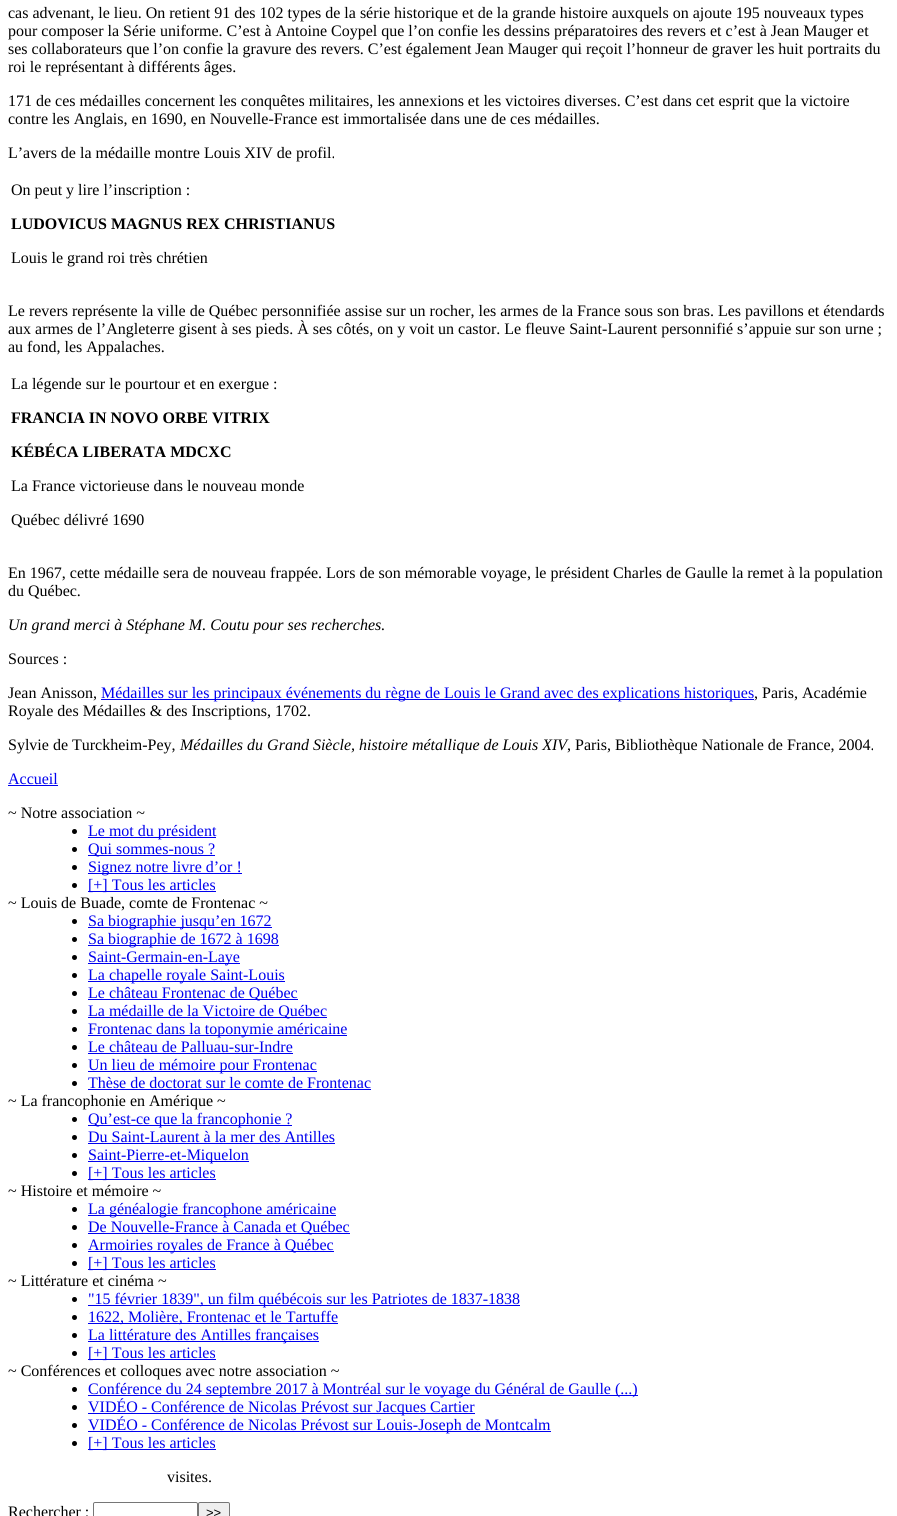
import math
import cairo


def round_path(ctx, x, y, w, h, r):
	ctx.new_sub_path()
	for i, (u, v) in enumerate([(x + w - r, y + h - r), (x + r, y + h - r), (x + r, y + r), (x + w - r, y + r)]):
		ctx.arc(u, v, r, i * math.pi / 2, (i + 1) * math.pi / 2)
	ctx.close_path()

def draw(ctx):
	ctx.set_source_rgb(1, 1, 1)
	ctx.paint()
	ctx.select_font_face('Liberation Serif')
	ctx.set_font_size(16)
	ctx.set_source_rgb(0, 0, 0)
	for x, y, s in [
		(8, 18, 'cas advenant, le lieu. On retient 91 des 102 types de la série historique et de la grande histoire auxquels on ajoute 195 nouveaux types'),
		(8, 36, 'pour composer la Série uniforme. C’est à Antoine Coypel que l’on confie les dessins préparatoires des revers et c’est à Jean Mauger et'),
		(8, 54, 'ses collaborateurs que l’on confie la gravure des revers. C’est également Jean Mauger qui reçoit l’honneur de graver les huit portraits du'),
		(8, 72, 'roi le représentant à différents âges.'),
		(8, 106, '171 de ces médailles concernent les conquêtes militaires, les annexions et les victoires diverses. C’est dans cet esprit que la victoire'),
		(8, 124, 'contre les Anglais, en 1690, en Nouvelle-France est immortalisée dans une de ces médailles.'),
		(8, 158, 'L’avers de la médaille montre Louis XIV de profil.'),
		(11, 195, 'On peut y lire l’inscription :'),
	]:
		ctx.move_to(x, y)
		ctx.show_text(s)
	ctx.select_font_face('Liberation Serif', cairo.FONT_SLANT_NORMAL, cairo.FONT_WEIGHT_BOLD)
	ctx.move_to(11, 229)
	ctx.show_text('LUDOVICUS MAGNUS REX CHRISTIANUS')
	ctx.select_font_face('Liberation Serif')
	for x, y, s in [
		(11, 263, 'Louis le grand roi très chrétien'),
		(8, 316, 'Le revers représente la ville de Québec personnifiée assise sur un rocher, les armes de la France sous son bras. Les pavillons et étendards'),
		(8, 334, 'aux armes de l’Angleterre gisent à ses pieds. À ses côtés, on y voit un castor. Le fleuve Saint-Laurent personnifié s’appuie sur son urne ;'),
		(8, 352, 'au fond, les Appalaches.'),
		(11, 389, 'La légende sur le pourtour et en exergue :'),
	]:
		ctx.move_to(x, y)
		ctx.show_text(s)
	ctx.select_font_face('Liberation Serif', cairo.FONT_SLANT_NORMAL, cairo.FONT_WEIGHT_BOLD)
	ctx.move_to(11, 423)
	ctx.show_text('FRANCIA IN NOVO ORBE VITRIX')
	ctx.move_to(11, 457)
	ctx.show_text('KÉBÉCA LIBERATA MDCXC')
	ctx.select_font_face('Liberation Serif')
	for x, y, s in [
		(11, 491, 'La France victorieuse dans le nouveau monde'),
		(11, 525, 'Québec délivré 1690'),
		(8, 578, 'En 1967, cette médaille sera de nouveau frappée. Lors de son mémorable voyage, le président Charles de Gaulle la remet à la population'),
		(8, 596, 'du Québec.'),
	]:
		ctx.move_to(x, y)
		ctx.show_text(s)
	ctx.select_font_face('Liberation Serif', cairo.FONT_SLANT_ITALIC)
	ctx.move_to(8, 630)
	ctx.show_text('Un grand merci à Stéphane M. Coutu pour ses recherches.')
	ctx.select_font_face('Liberation Serif')
	ctx.move_to(8, 664)
	ctx.show_text('Sources :')
	ctx.move_to(8, 698)
	ctx.show_text('Jean Anisson,')
	ctx.set_source_rgb(0, 0, 0.933)
	ctx.rectangle(101, 699, 653, 1)
	ctx.fill()
	ctx.move_to(101, 698)
	ctx.show_text('Médailles sur les principaux événements du règne de Louis le Grand avec des explications historiques')
	ctx.set_source_rgb(0, 0, 0)
	for x, y, s in [
		(754, 698, ', Paris, Académie'),
		(8, 716, 'Royale des Médailles & des Inscriptions, 1702.'),
		(8, 750, 'Sylvie de Turckheim-Pey,'),
	]:
		ctx.move_to(x, y)
		ctx.show_text(s)
	ctx.select_font_face('Liberation Serif', cairo.FONT_SLANT_ITALIC)
	ctx.move_to(180, 750)
	ctx.show_text('Médailles du Grand Siècle, histoire métallique de Louis XIV')
	ctx.select_font_face('Liberation Serif')
	ctx.move_to(567, 750)
	ctx.show_text(', Paris, Bibliothèque Nationale de France, 2004.')
	ctx.set_source_rgb(0, 0, 0.933)
	ctx.move_to(8, 784)
	ctx.show_text('Accueil')
	ctx.rectangle(8, 785, 50, 1)
	ctx.fill()
	ctx.set_source_rgb(0, 0, 0)
	ctx.move_to(8, 818)
	ctx.show_text('~ Notre association ~')
	ctx.new_path()
	ctx.arc(74.5, 831.5, 2.5, 0, 2 * math.pi)
	ctx.fill()
	ctx.set_source_rgb(0, 0, 0.933)
	ctx.rectangle(88, 837, 128, 1)
	ctx.fill()
	ctx.move_to(88, 836)
	ctx.show_text('Le mot du président')
	ctx.set_source_rgb(0, 0, 0)
	ctx.new_path()
	ctx.arc(74.5, 849.5, 2.5, 0, 2 * math.pi)
	ctx.fill()
	ctx.set_source_rgb(0, 0, 0.933)
	ctx.rectangle(88, 855, 127, 1)
	ctx.fill()
	ctx.move_to(88, 854)
	ctx.show_text('Qui sommes-nous ?')
	ctx.set_source_rgb(0, 0, 0)
	ctx.new_path()
	ctx.arc(74.5, 867.5, 2.5, 0, 2 * math.pi)
	ctx.fill()
	ctx.set_source_rgb(0, 0, 0.933)
	ctx.rectangle(88, 873, 154, 1)
	ctx.fill()
	ctx.move_to(88, 872)
	ctx.show_text('Signez notre livre d’or !')
	ctx.set_source_rgb(0, 0, 0)
	ctx.new_path()
	ctx.arc(74.5, 885.5, 2.5, 0, 2 * math.pi)
	ctx.fill()
	ctx.set_source_rgb(0, 0, 0.933)
	ctx.rectangle(88, 891, 128, 1)
	ctx.fill()
	ctx.move_to(88, 890)
	ctx.show_text('[+] Tous les articles')
	ctx.set_source_rgb(0, 0, 0)
	ctx.move_to(8, 908)
	ctx.show_text('~ Louis de Buade, comte de Frontenac ~')
	ctx.new_path()
	ctx.arc(74.5, 921.5, 2.5, 0, 2 * math.pi)
	ctx.fill()
	ctx.set_source_rgb(0, 0, 0.933)
	ctx.rectangle(88, 927, 184, 1)
	ctx.fill()
	ctx.move_to(88, 926)
	ctx.show_text('Sa biographie jusqu’en 1672')
	ctx.set_source_rgb(0, 0, 0)
	ctx.new_path()
	ctx.arc(74.5, 939.5, 2.5, 0, 2 * math.pi)
	ctx.fill()
	ctx.set_source_rgb(0, 0, 0.933)
	ctx.rectangle(88, 945, 191, 1)
	ctx.fill()
	ctx.move_to(88, 944)
	ctx.show_text('Sa biographie de 1672 à 1698')
	ctx.set_source_rgb(0, 0, 0)
	ctx.new_path()
	ctx.arc(74.5, 957.5, 2.5, 0, 2 * math.pi)
	ctx.fill()
	ctx.set_source_rgb(0, 0, 0.933)
	ctx.rectangle(88, 963, 152, 1)
	ctx.fill()
	ctx.move_to(88, 962)
	ctx.show_text('Saint-Germain-en-Laye')
	ctx.set_source_rgb(0, 0, 0)
	ctx.new_path()
	ctx.arc(74.5, 975.5, 2.5, 0, 2 * math.pi)
	ctx.fill()
	ctx.set_source_rgb(0, 0, 0.933)
	ctx.rectangle(88, 981, 197, 1)
	ctx.fill()
	ctx.move_to(88, 980)
	ctx.show_text('La chapelle royale Saint-Louis')
	ctx.set_source_rgb(0, 0, 0)
	ctx.new_path()
	ctx.arc(74.5, 993.5, 2.5, 0, 2 * math.pi)
	ctx.fill()
	ctx.set_source_rgb(0, 0, 0.933)
	ctx.rectangle(88, 999, 210, 1)
	ctx.fill()
	ctx.move_to(88, 998)
	ctx.show_text('Le château Frontenac de Québec')
	ctx.set_source_rgb(0, 0, 0)
	ctx.new_path()
	ctx.arc(74.5, 1011.5, 2.5, 0, 2 * math.pi)
	ctx.fill()
	ctx.set_source_rgb(0, 0, 0.933)
	ctx.rectangle(88, 1017, 239, 1)
	ctx.fill()
	ctx.move_to(88, 1016)
	ctx.show_text('La médaille de la Victoire de Québec')
	ctx.set_source_rgb(0, 0, 0)
	ctx.new_path()
	ctx.arc(74.5, 1029.5, 2.5, 0, 2 * math.pi)
	ctx.fill()
	ctx.set_source_rgb(0, 0, 0.933)
	ctx.rectangle(88, 1035, 259, 1)
	ctx.fill()
	ctx.move_to(88, 1034)
	ctx.show_text('Frontenac dans la toponymie américaine')
	ctx.set_source_rgb(0, 0, 0)
	ctx.new_path()
	ctx.arc(74.5, 1047.5, 2.5, 0, 2 * math.pi)
	ctx.fill()
	ctx.set_source_rgb(0, 0, 0.933)
	ctx.move_to(88, 1052)
	ctx.show_text('Le château de Palluau-sur-Indre')
	ctx.rectangle(88, 1053, 205, 1)
	ctx.fill()
	ctx.set_source_rgb(0, 0, 0)
	ctx.arc(74.5, 1065.5, 2.5, 0, 2 * math.pi)
	ctx.fill()
	ctx.set_source_rgb(0, 0, 0.933)
	ctx.rectangle(88, 1071, 229, 1)
	ctx.fill()
	ctx.move_to(88, 1070)
	ctx.show_text('Un lieu de mémoire pour Frontenac')
	ctx.set_source_rgb(0, 0, 0)
	ctx.new_path()
	ctx.arc(74.5, 1083.5, 2.5, 0, 2 * math.pi)
	ctx.fill()
	ctx.set_source_rgb(0, 0, 0.933)
	ctx.move_to(88, 1088)
	ctx.show_text('Thèse de doctorat sur le comte de Frontenac')
	ctx.rectangle(88, 1089, 283, 1)
	ctx.fill()
	ctx.set_source_rgb(0, 0, 0)
	ctx.move_to(8, 1106)
	ctx.show_text('~ La francophonie en Amérique ~')
	ctx.new_path()
	ctx.arc(74.5, 1119.5, 2.5, 0, 2 * math.pi)
	ctx.fill()
	ctx.set_source_rgb(0, 0, 0.933)
	ctx.rectangle(88, 1125, 204, 1)
	ctx.fill()
	ctx.move_to(88, 1124)
	ctx.show_text('Qu’est-ce que la francophonie ?')
	ctx.set_source_rgb(0, 0, 0)
	ctx.new_path()
	ctx.arc(74.5, 1137.5, 2.5, 0, 2 * math.pi)
	ctx.fill()
	ctx.set_source_rgb(0, 0, 0.933)
	ctx.move_to(88, 1142)
	ctx.show_text('Du Saint-Laurent à la mer des Antilles')
	ctx.rectangle(88, 1143, 247, 1)
	ctx.fill()
	ctx.set_source_rgb(0, 0, 0)
	ctx.arc(74.5, 1155.5, 2.5, 0, 2 * math.pi)
	ctx.fill()
	ctx.set_source_rgb(0, 0, 0.933)
	ctx.rectangle(88, 1161, 161, 1)
	ctx.fill()
	ctx.move_to(88, 1160)
	ctx.show_text('Saint-Pierre-et-Miquelon')
	ctx.set_source_rgb(0, 0, 0)
	ctx.new_path()
	ctx.arc(74.5, 1173.5, 2.5, 0, 2 * math.pi)
	ctx.fill()
	ctx.set_source_rgb(0, 0, 0.933)
	ctx.rectangle(88, 1179, 128, 1)
	ctx.fill()
	ctx.move_to(88, 1178)
	ctx.show_text('[+] Tous les articles')
	ctx.set_source_rgb(0, 0, 0)
	ctx.move_to(8, 1196)
	ctx.show_text('~ Histoire et mémoire ~')
	ctx.new_path()
	ctx.arc(74.5, 1209.5, 2.5, 0, 2 * math.pi)
	ctx.fill()
	ctx.set_source_rgb(0, 0, 0.933)
	ctx.rectangle(88, 1215, 248, 1)
	ctx.fill()
	ctx.move_to(88, 1214)
	ctx.show_text('La généalogie francophone américaine')
	ctx.set_source_rgb(0, 0, 0)
	ctx.new_path()
	ctx.arc(74.5, 1227.5, 2.5, 0, 2 * math.pi)
	ctx.fill()
	ctx.set_source_rgb(0, 0, 0.933)
	ctx.rectangle(88, 1233, 262, 1)
	ctx.fill()
	ctx.move_to(88, 1232)
	ctx.show_text('De Nouvelle-France à Canada et Québec')
	ctx.set_source_rgb(0, 0, 0)
	ctx.new_path()
	ctx.arc(74.5, 1245.5, 2.5, 0, 2 * math.pi)
	ctx.fill()
	ctx.set_source_rgb(0, 0, 0.933)
	ctx.rectangle(88, 1251, 246, 1)
	ctx.fill()
	ctx.move_to(88, 1250)
	ctx.show_text('Armoiries royales de France à Québec')
	ctx.set_source_rgb(0, 0, 0)
	ctx.new_path()
	ctx.arc(74.5, 1263.5, 2.5, 0, 2 * math.pi)
	ctx.fill()
	ctx.set_source_rgb(0, 0, 0.933)
	ctx.rectangle(88, 1269, 128, 1)
	ctx.fill()
	ctx.move_to(88, 1268)
	ctx.show_text('[+] Tous les articles')
	ctx.set_source_rgb(0, 0, 0)
	ctx.move_to(8, 1286)
	ctx.show_text('~ Littérature et cinéma ~')
	ctx.new_path()
	ctx.arc(74.5, 1299.5, 2.5, 0, 2 * math.pi)
	ctx.fill()
	ctx.set_source_rgb(0, 0, 0.933)
	ctx.rectangle(88, 1305, 432, 1)
	ctx.fill()
	ctx.move_to(88, 1304)
	ctx.show_text('"15 février 1839", un film québécois sur les Patriotes de 1837-1838')
	ctx.set_source_rgb(0, 0, 0)
	ctx.new_path()
	ctx.arc(74.5, 1317.5, 2.5, 0, 2 * math.pi)
	ctx.fill()
	ctx.set_source_rgb(0, 0, 0.933)
	ctx.rectangle(88, 1323, 250, 1)
	ctx.fill()
	ctx.move_to(88, 1322)
	ctx.show_text('1622, Molière, Frontenac et le Tartuffe')
	ctx.set_source_rgb(0, 0, 0)
	ctx.new_path()
	ctx.arc(74.5, 1335.5, 2.5, 0, 2 * math.pi)
	ctx.fill()
	ctx.set_source_rgb(0, 0, 0.933)
	ctx.rectangle(88, 1341, 231, 1)
	ctx.fill()
	ctx.move_to(88, 1340)
	ctx.show_text('La littérature des Antilles françaises')
	ctx.set_source_rgb(0, 0, 0)
	ctx.new_path()
	ctx.arc(74.5, 1353.5, 2.5, 0, 2 * math.pi)
	ctx.fill()
	ctx.set_source_rgb(0, 0, 0.933)
	ctx.rectangle(88, 1359, 128, 1)
	ctx.fill()
	ctx.move_to(88, 1358)
	ctx.show_text('[+] Tous les articles')
	ctx.set_source_rgb(0, 0, 0)
	ctx.move_to(8, 1376)
	ctx.show_text('~ Conférences et colloques avec notre association ~')
	ctx.new_path()
	ctx.arc(74.5, 1389.5, 2.5, 0, 2 * math.pi)
	ctx.fill()
	ctx.set_source_rgb(0, 0, 0.933)
	ctx.rectangle(88, 1395, 550, 1)
	ctx.fill()
	ctx.move_to(88, 1394)
	ctx.show_text('Conférence du 24 septembre 2017 à Montréal sur le voyage du Général de Gaulle (...)')
	ctx.set_source_rgb(0, 0, 0)
	ctx.new_path()
	ctx.arc(74.5, 1407.5, 2.5, 0, 2 * math.pi)
	ctx.fill()
	ctx.set_source_rgb(0, 0, 0.933)
	ctx.rectangle(88, 1413, 387, 1)
	ctx.fill()
	ctx.move_to(88, 1412)
	ctx.show_text('VIDÉO - Conférence de Nicolas Prévost sur Jacques Cartier')
	ctx.set_source_rgb(0, 0, 0)
	ctx.new_path()
	ctx.arc(74.5, 1425.5, 2.5, 0, 2 * math.pi)
	ctx.fill()
	ctx.set_source_rgb(0, 0, 0.933)
	ctx.rectangle(88, 1431, 463, 1)
	ctx.fill()
	ctx.move_to(88, 1430)
	ctx.show_text('VIDÉO - Conférence de Nicolas Prévost sur Louis-Joseph de Montcalm')
	ctx.set_source_rgb(0, 0, 0)
	ctx.new_path()
	ctx.arc(74.5, 1443.5, 2.5, 0, 2 * math.pi)
	ctx.fill()
	ctx.set_source_rgb(0, 0, 0.933)
	ctx.rectangle(88, 1449, 128, 1)
	ctx.fill()
	ctx.move_to(88, 1448)
	ctx.show_text('[+] Tous les articles')
	ctx.set_source_rgb(0, 0, 0)
	ctx.move_to(167, 1482)
	ctx.show_text('visites.')
	ctx.move_to(8, 1517)
	ctx.show_text('Rechercher :')
	round_path(ctx, 93.5, 1502.5, 104, 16, 1.5)
	ctx.set_source_rgb(0.463, 0.463, 0.463)
	ctx.set_line_width(1)
	ctx.stroke()
	ctx.set_source_rgb(0.937, 0.937, 0.937)
	round_path(ctx, 198.5, 1502.5, 31, 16, 1.5)
	ctx.fill_preserve()
	ctx.set_source_rgb(0.463, 0.463, 0.463)
	ctx.stroke()
	ctx.select_font_face('Liberation Sans')
	ctx.set_font_size(13)
	ctx.set_source_rgb(0, 0, 0)
	ctx.move_to(206, 1517)
	ctx.show_text('>>')


surface = cairo.ImageSurface(cairo.FORMAT_RGB24, 897, 1516)
ctx = cairo.Context(surface)
options = cairo.FontOptions()
options.set_hint_metrics(cairo.HINT_METRICS_OFF)
options.set_hint_style(cairo.HINT_STYLE_NONE)
ctx.set_font_options(options)
ctx.set_miter_limit(4)
draw(ctx)
surface.write_to_png('image.png')
